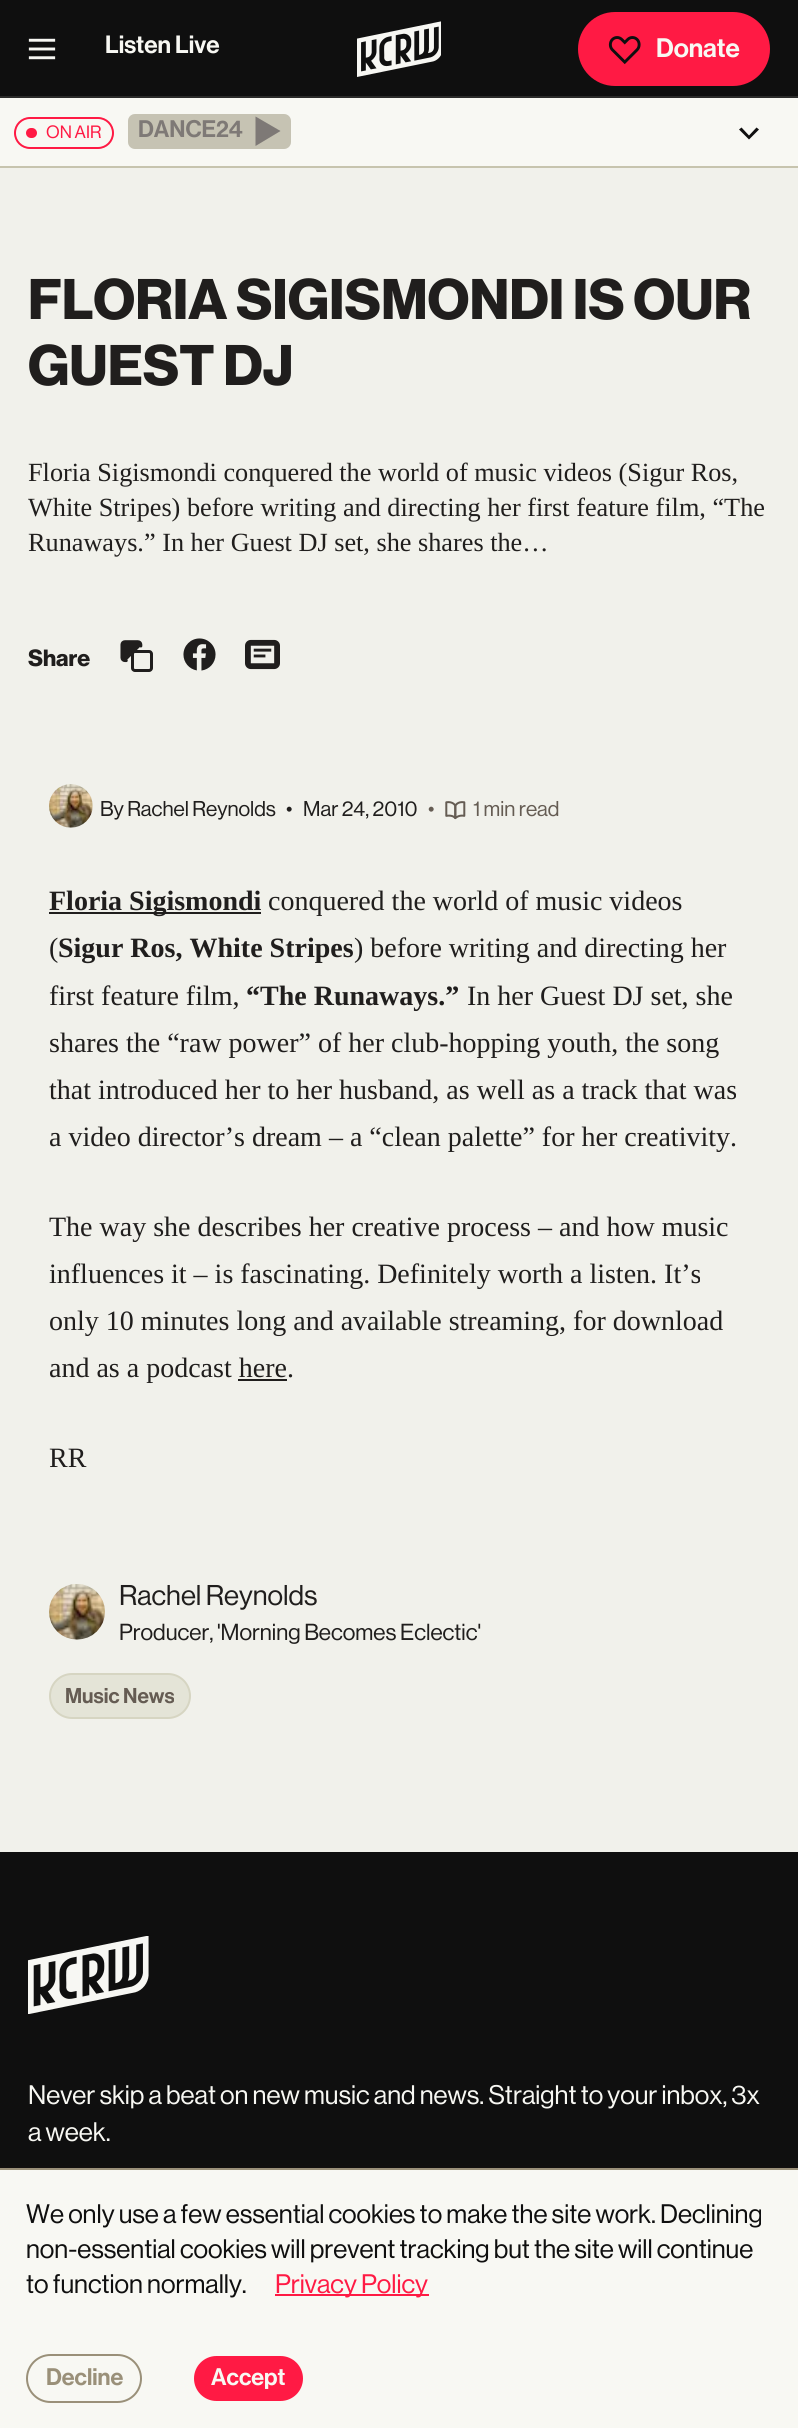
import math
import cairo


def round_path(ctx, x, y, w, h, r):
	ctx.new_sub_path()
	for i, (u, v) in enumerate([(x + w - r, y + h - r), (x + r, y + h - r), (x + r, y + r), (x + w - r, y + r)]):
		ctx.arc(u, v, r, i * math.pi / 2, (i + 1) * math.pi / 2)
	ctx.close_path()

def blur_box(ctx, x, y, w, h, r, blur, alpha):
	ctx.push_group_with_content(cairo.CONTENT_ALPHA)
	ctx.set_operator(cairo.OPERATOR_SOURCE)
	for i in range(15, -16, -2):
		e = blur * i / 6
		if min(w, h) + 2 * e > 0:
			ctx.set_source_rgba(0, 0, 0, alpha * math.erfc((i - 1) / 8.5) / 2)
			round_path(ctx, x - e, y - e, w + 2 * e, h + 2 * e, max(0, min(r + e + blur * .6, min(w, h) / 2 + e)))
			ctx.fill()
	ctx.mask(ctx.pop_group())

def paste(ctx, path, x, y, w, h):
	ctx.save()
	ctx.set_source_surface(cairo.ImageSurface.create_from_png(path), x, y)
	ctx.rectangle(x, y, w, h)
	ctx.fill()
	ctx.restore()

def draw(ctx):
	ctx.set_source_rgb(0.945, 0.945, 0.918)
	ctx.paint()
	ctx.set_source_rgb(0.059, 0.059, 0.059)
	ctx.rectangle(0, 0, 798, 96)
	ctx.fill()
	ctx.set_source_rgb(0.169, 0.169, 0.165)
	ctx.rectangle(0, 96, 798, 2)
	ctx.fill()
	paste(ctx, 'media/1.png', 28, 38, 28, 22)
	ctx.select_font_face('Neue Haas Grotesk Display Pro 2 Medium')
	ctx.set_font_size(24.5)
	ctx.set_source_rgb(0.969, 0.969, 0.953)
	ctx.move_to(105, 53)
	ctx.show_text('Listen Live')
	paste(ctx, 'media/2.png', 357, 21, 84, 56)
	ctx.set_source_rgb(1, 0.102, 0.267)
	round_path(ctx, 579, 13, 190, 72, 36)
	ctx.fill_preserve()
	ctx.stroke()
	paste(ctx, 'media/3.png', 608, 36, 33, 29)
	ctx.set_font_size(26.25)
	ctx.set_source_rgb(0.969, 0.969, 0.953)
	ctx.move_to(656, 57)
	ctx.show_text('Donate')
	ctx.rectangle(0, 98, 798, 68)
	ctx.fill()
	ctx.set_source_rgb(0.78, 0.769, 0.682)
	ctx.rectangle(0, 166, 798, 2)
	ctx.fill()
	round_path(ctx, 15, 118, 98, 30, 15)
	ctx.set_source_rgb(1, 0.102, 0.267)
	ctx.stroke()
	round_path(ctx, 26, 128, 11, 10, 5)
	ctx.fill()
	ctx.select_font_face('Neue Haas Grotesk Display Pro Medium')
	ctx.set_font_size(17.5)
	ctx.move_to(46, 138)
	ctx.show_text('ON AIR')
	ctx.set_source_rgb(0.937, 0.937, 0.937)
	round_path(ctx, 128, 114, 163, 35, 7)
	ctx.fill()
	ctx.set_source_rgba(0.714, 0.694, 0.604, 0.7)
	round_path(ctx, 128, 114, 163, 35, 7)
	ctx.fill()
	ctx.select_font_face('Neue Haas Grotesk Display Pro 2 Medium')
	ctx.set_font_size(23.5)
	ctx.set_source_rgb(0.494, 0.475, 0.463)
	ctx.move_to(138, 137)
	ctx.show_text('DANCE24')
	ctx.new_path()
	ctx.move_to(255.5, 116.5)
	ctx.line_to(255.5, 146)
	ctx.line_to(280.5, 131)
	ctx.close_path()
	ctx.fill()
	ctx.set_source_rgb(0.063, 0.059, 0.059)
	ctx.set_fill_rule(cairo.FILL_RULE_EVEN_ODD)
	ctx.new_path()
	ctx.move_to(739, 129.5)
	ctx.line_to(741.5, 127.5)
	ctx.line_to(749, 135.5)
	ctx.line_to(756.5, 127.5)
	ctx.line_to(759, 129.5)
	ctx.line_to(749, 139.5)
	ctx.close_path()
	ctx.fill()
	ctx.select_font_face('Neue Haas Grotesk Display Pro', cairo.FONT_SLANT_NORMAL, cairo.FONT_WEIGHT_BOLD)
	ctx.set_font_size(56)
	ctx.set_source_rgb(0.125, 0.118, 0.114)
	ctx.move_to(28, 319)
	ctx.show_text('FLORIA SIGISMONDI IS OUR')
	ctx.move_to(28, 385)
	ctx.show_text('GUEST DJ')
	ctx.select_font_face('Liberation Serif')
	ctx.set_font_size(26.25)
	for x, y, s in [
		(28, 481, 'Floria Sigismondi conquered the world of music videos (Sigur Ros,'),
		(28, 516, 'White Stripes) before writing and directing her first feature film, “The'),
		(28, 551, 'Runaways.” In her Guest DJ set, she shares the…'),
	]:
		ctx.move_to(x, y)
		ctx.show_text(s)
	ctx.select_font_face('Neue Haas Grotesk Display Pro', cairo.FONT_SLANT_NORMAL, cairo.FONT_WEIGHT_BOLD)
	ctx.set_font_size(23)
	ctx.move_to(28, 666)
	ctx.show_text('Share')
	paste(ctx, 'media/4.png', 120, 640, 33, 32)
	paste(ctx, 'media/5.png', 183, 638, 33, 33)
	paste(ctx, 'media/6.png', 245, 639, 35, 31)
	paste(ctx, 'media/7.png', 49, 784, 44, 44)
	ctx.select_font_face('Neue Haas Grotesk Display Pro Medium')
	ctx.set_font_size(21)
	for x, y, s in [
		(100, 816, 'By Rachel Reynolds'),
		(286, 816, '•'),
		(303, 816, 'Mar 24, 2010'),
	]:
		ctx.move_to(x, y)
		ctx.show_text(s)
	ctx.set_source_rgb(0.396, 0.361, 0.325)
	ctx.move_to(428, 816)
	ctx.show_text('•')
	paste(ctx, 'media/8.png', 445, 801, 21, 19)
	ctx.move_to(473, 816)
	ctx.show_text('1 min read')
	ctx.set_source_rgb(0.125, 0.118, 0.114)
	ctx.rectangle(49, 912, 212, 2)
	ctx.fill()
	ctx.select_font_face('Liberation Serif', cairo.FONT_SLANT_NORMAL, cairo.FONT_WEIGHT_BOLD)
	ctx.set_font_size(28)
	ctx.move_to(49, 910)
	ctx.show_text('Floria Sigismondi')
	ctx.select_font_face('Liberation Serif')
	ctx.move_to(268, 910)
	ctx.show_text('conquered the world of music videos')
	ctx.move_to(49, 957)
	ctx.show_text('(')
	ctx.select_font_face('Liberation Serif', cairo.FONT_SLANT_NORMAL, cairo.FONT_WEIGHT_BOLD)
	ctx.move_to(58, 957)
	ctx.show_text('Sigur Ros, White Stripes')
	ctx.select_font_face('Liberation Serif')
	ctx.move_to(354, 957)
	ctx.show_text(') before writing and directing her')
	ctx.move_to(49, 1005)
	ctx.show_text('first feature film,')
	ctx.select_font_face('Liberation Serif', cairo.FONT_SLANT_NORMAL, cairo.FONT_WEIGHT_BOLD)
	ctx.move_to(246, 1005)
	ctx.show_text('“The Runaways.”')
	ctx.select_font_face('Liberation Serif')
	for x, y, s in [
		(467, 1005, 'In her Guest DJ set, she'),
		(49, 1052, 'shares the “raw power” of her club-hopping youth, the song'),
		(49, 1099, 'that introduced her to her husband, as well as a track that was'),
		(49, 1146, 'a video director’s dream – a “clean palette” for her creativity.'),
		(49, 1236, 'The way she describes her creative process – and how music'),
		(49, 1283, 'influences it – is fascinating. Definitely worth a listen. It’s'),
		(49, 1330, 'only 10 minutes long and available streaming, for download'),
		(49, 1377, 'and as a podcast here.'),
	]:
		ctx.move_to(x, y)
		ctx.show_text(s)
	ctx.rectangle(238, 1379, 49, 2)
	ctx.fill()
	ctx.move_to(49, 1467)
	ctx.show_text('RR')
	paste(ctx, 'media/9.png', 49, 1584, 56, 56)
	ctx.select_font_face('Neue Haas Grotesk Display Pro Medium')
	ctx.move_to(119, 1605)
	ctx.show_text('Rachel Reynolds')
	ctx.set_font_size(22.75)
	ctx.move_to(119, 1640)
	ctx.show_text('Producer, \'Morning Becomes Eclectic\'')
	ctx.set_source_rgb(0.894, 0.894, 0.843)
	round_path(ctx, 50, 1674, 140, 44, 22)
	ctx.fill_preserve()
	ctx.set_source_rgb(0.839, 0.835, 0.761)
	ctx.stroke()
	ctx.select_font_face('Neue Haas Grotesk Display Pro 2 Medium')
	ctx.set_font_size(21)
	ctx.set_source_rgb(0.396, 0.361, 0.325)
	ctx.move_to(65, 1703)
	ctx.show_text('Music News')
	ctx.set_source_rgb(0.059, 0.059, 0.059)
	ctx.rectangle(0, 1852, 798, 316)
	ctx.fill()
	paste(ctx, 'media/10.png', 28, 1936, 121, 78)
	ctx.select_font_face('Neue Haas Grotesk Display Pro Medium')
	ctx.set_font_size(26.25)
	ctx.set_source_rgb(0.969, 0.969, 0.953)
	ctx.move_to(28, 2104)
	ctx.show_text('Never skip a beat on new music and news. Straight to your inbox, 3x')
	ctx.move_to(28, 2141)
	ctx.show_text('a week.')
	ctx.set_source_rgb(0.404, 0.02, 0.067)
	blur_box(ctx, 0, 2172, 798, 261, 0, 3.5, 0.25)
	ctx.set_source_rgb(0.969, 0.969, 0.953)
	ctx.rectangle(0, 2170, 798, 258)
	ctx.fill()
	ctx.set_source_rgb(0.604, 0.565, 0.475)
	ctx.rectangle(0, 2168, 798, 2)
	ctx.fill()
	ctx.set_source_rgb(0.059, 0.059, 0.059)
	for x, y, s in [
		(26, 2223, 'We only use a few essential cookies to make the site work. Declining'),
		(26, 2258, 'non-essential cookies will prevent tracking but the site will continue'),
		(26, 2293, 'to function normally.'),
	]:
		ctx.move_to(x, y)
		ctx.show_text(s)
	ctx.set_source_rgb(1, 0.102, 0.267)
	ctx.rectangle(275, 2294, 154, 2)
	ctx.fill()
	ctx.move_to(275, 2293)
	ctx.show_text('Privacy Policy')
	round_path(ctx, 27, 2355, 114, 47, 23.5)
	ctx.set_source_rgb(0.604, 0.565, 0.475)
	ctx.stroke()
	ctx.select_font_face('Neue Haas Grotesk Display Pro 2 Medium')
	ctx.set_font_size(23.5)
	ctx.move_to(46, 2385)
	ctx.show_text('Decline')
	ctx.set_source_rgb(1, 0.102, 0.267)
	round_path(ctx, 194, 2356, 109, 45, 22.5)
	ctx.fill()
	ctx.set_source_rgb(0.969, 0.969, 0.953)
	ctx.move_to(211, 2385)
	ctx.show_text('Accept')


surface = cairo.ImageSurface(cairo.FORMAT_RGB24, 798, 2428)
ctx = cairo.Context(surface)
options = cairo.FontOptions()
options.set_hint_metrics(cairo.HINT_METRICS_OFF)
options.set_hint_style(cairo.HINT_STYLE_NONE)
ctx.set_font_options(options)
ctx.set_miter_limit(4)
draw(ctx)
surface.write_to_png('image.png')
